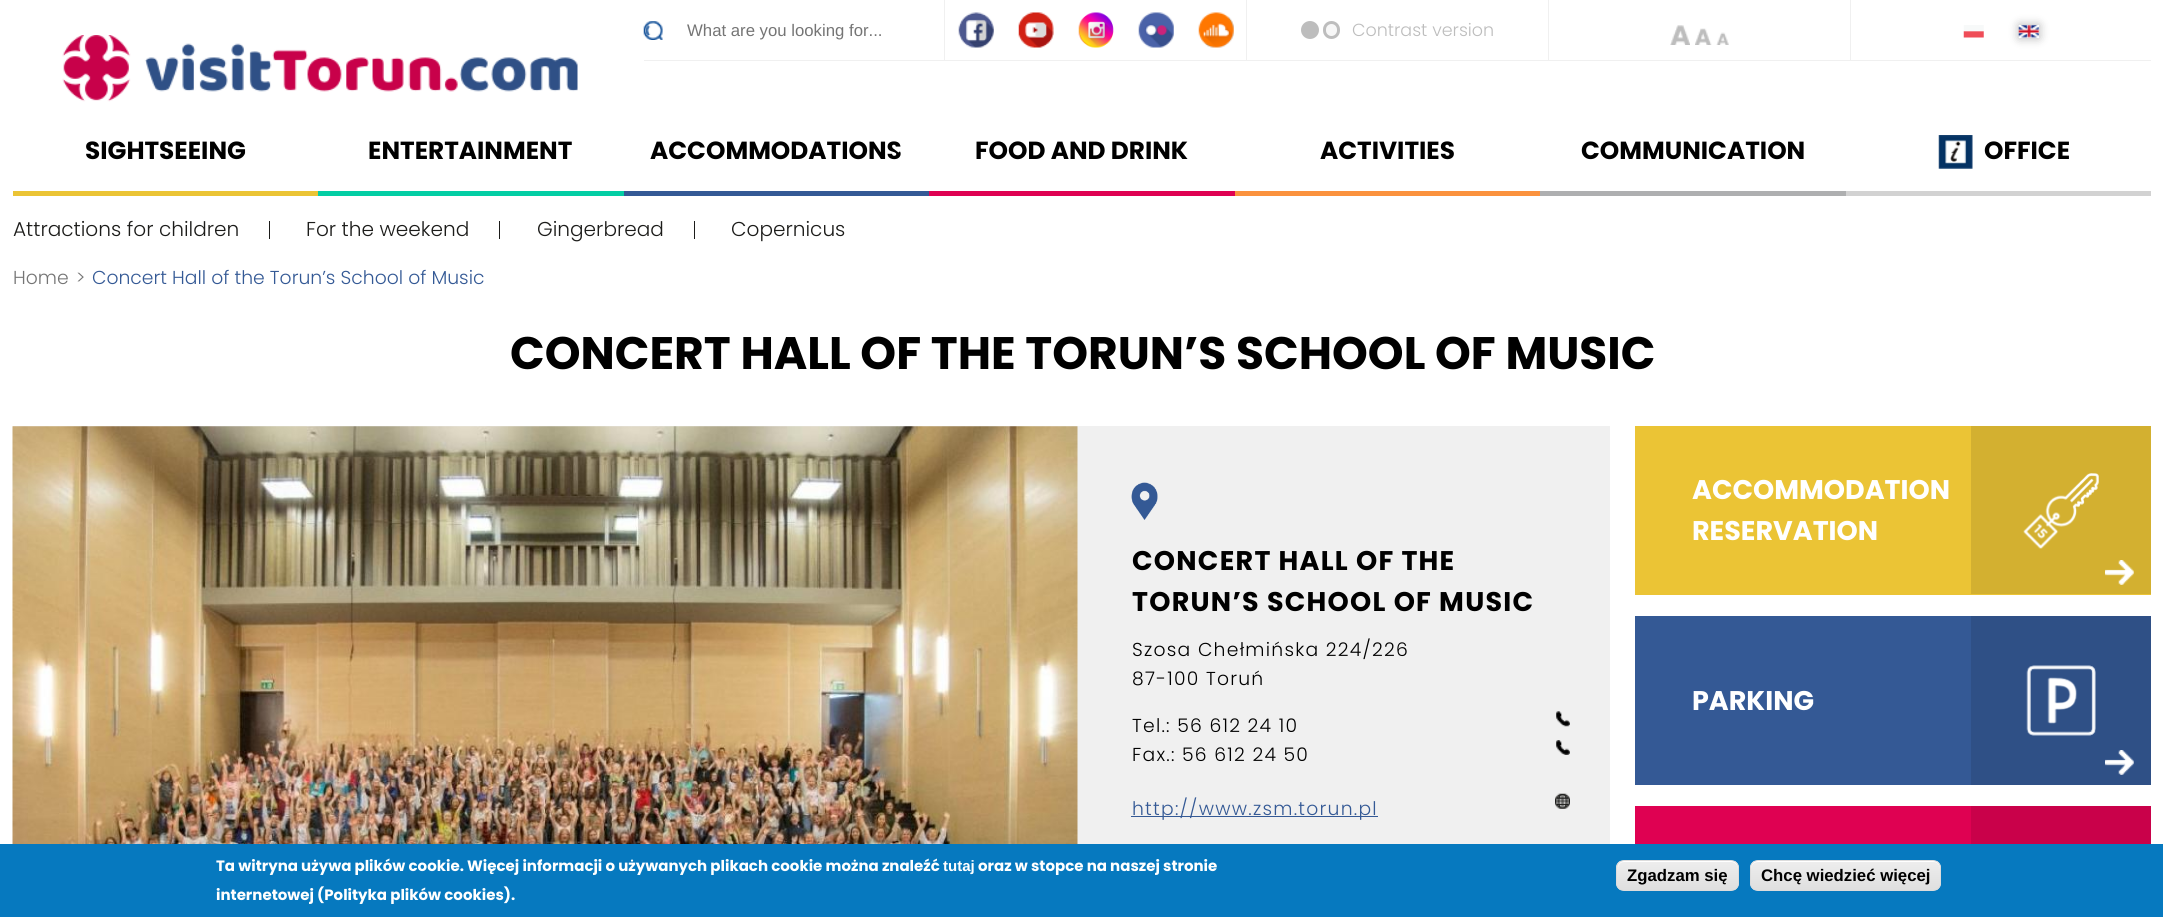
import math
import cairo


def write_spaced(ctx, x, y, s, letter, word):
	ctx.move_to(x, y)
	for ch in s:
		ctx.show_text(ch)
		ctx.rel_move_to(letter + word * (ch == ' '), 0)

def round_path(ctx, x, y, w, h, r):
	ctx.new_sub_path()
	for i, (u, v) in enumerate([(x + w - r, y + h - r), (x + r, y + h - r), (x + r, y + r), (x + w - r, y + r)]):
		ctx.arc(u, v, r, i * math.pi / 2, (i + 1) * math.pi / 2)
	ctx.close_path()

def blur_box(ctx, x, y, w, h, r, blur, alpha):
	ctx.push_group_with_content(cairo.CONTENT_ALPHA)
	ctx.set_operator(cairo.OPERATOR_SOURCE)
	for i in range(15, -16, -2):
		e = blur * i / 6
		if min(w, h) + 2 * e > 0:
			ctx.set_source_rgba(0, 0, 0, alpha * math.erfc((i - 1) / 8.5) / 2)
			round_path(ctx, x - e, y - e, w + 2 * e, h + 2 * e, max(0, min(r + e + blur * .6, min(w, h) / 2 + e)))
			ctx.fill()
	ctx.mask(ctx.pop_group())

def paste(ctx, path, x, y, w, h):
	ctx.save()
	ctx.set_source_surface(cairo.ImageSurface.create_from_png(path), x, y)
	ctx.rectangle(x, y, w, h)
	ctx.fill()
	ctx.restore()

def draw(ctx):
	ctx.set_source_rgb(1, 1, 1)
	ctx.paint()
	ctx.set_source_rgb(0.941, 0.941, 0.941)
	ctx.rectangle(644, 60, 1507, 1)
	ctx.fill()
	ctx.rectangle(944, 0, 1, 60)
	ctx.fill()
	paste(ctx, 'media/1.png', 643, 21, 20, 19)
	ctx.select_font_face('Liberation Sans')
	ctx.set_font_size(16.75)
	ctx.set_source_rgb(0.459, 0.459, 0.459)
	ctx.move_to(687, 36)
	ctx.show_text('What are you looking for...')
	ctx.set_source_rgb(0.941, 0.941, 0.941)
	ctx.rectangle(1246, 0, 1, 60)
	ctx.fill()
	paste(ctx, 'media/2.png', 958, 12, 36, 36)
	paste(ctx, 'media/3.png', 1018, 12, 36, 36)
	paste(ctx, 'media/4.png', 1078, 12, 36, 36)
	paste(ctx, 'media/5.png', 1138, 12, 36, 36)
	paste(ctx, 'media/6.png', 1198, 12, 36, 36)
	ctx.rectangle(1548, 0, 1, 60)
	ctx.fill()
	ctx.set_source_rgb(0.741, 0.741, 0.741)
	ctx.arc(1310, 30, 7.5, 0, 2 * math.pi)
	ctx.fill_preserve()
	ctx.set_line_width(3)
	ctx.stroke()
	ctx.set_source_rgb(0.965, 0.965, 0.965)
	round_path(ctx, 1324.5, 22.5, 14, 15, 7)
	ctx.fill_preserve()
	ctx.set_source_rgb(0.741, 0.741, 0.741)
	ctx.stroke()
	ctx.select_font_face('Poppins Light')
	ctx.set_font_size(17.5)
	ctx.move_to(1352, 36)
	ctx.show_text('Contrast version')
	ctx.set_source_rgb(0.941, 0.941, 0.941)
	ctx.rectangle(1850, 0, 1, 60)
	ctx.fill()
	paste(ctx, 'media/7.png', 1670, 25, 20, 20)
	paste(ctx, 'media/8.png', 1695, 28, 17, 17)
	paste(ctx, 'media/9.png', 1716, 32, 13, 13)
	paste(ctx, 'media/10.png', 1963, 25, 21, 13)
	ctx.save()
	ctx.set_fill_rule(cairo.FILL_RULE_EVEN_ODD)
	ctx.new_path()
	ctx.move_to(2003, 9)
	ctx.line_to(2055, 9)
	ctx.line_to(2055, 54)
	ctx.line_to(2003, 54)
	ctx.close_path()
	ctx.move_to(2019, 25)
	ctx.line_to(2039, 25)
	ctx.line_to(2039, 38)
	ctx.line_to(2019, 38)
	ctx.close_path()
	ctx.clip()
	ctx.set_source_rgb(0, 0, 0)
	blur_box(ctx, 2019, 25, 20, 13, 0, 5, 0.3)
	ctx.restore()
	paste(ctx, 'media/11.png', 2018, 25, 21, 13)
	paste(ctx, 'media/12.png', 62, 35, 516, 67)
	ctx.set_source_rgb(0.918, 0.769, 0.208)
	ctx.rectangle(13, 191, 305, 5)
	ctx.fill()
	ctx.select_font_face('Poppins', cairo.FONT_SLANT_NORMAL, cairo.FONT_WEIGHT_BOLD)
	ctx.set_font_size(24.75)
	ctx.set_source_rgb(0, 0, 0)
	ctx.move_to(85, 159)
	ctx.show_text('SIGHTSEEING')
	ctx.set_source_rgb(0.012, 0.808, 0.643)
	ctx.rectangle(318, 191, 306, 5)
	ctx.fill()
	ctx.set_source_rgb(0, 0, 0)
	ctx.move_to(368, 159)
	ctx.show_text('ENTERTAINMENT')
	ctx.set_source_rgb(0.204, 0.349, 0.584)
	ctx.rectangle(624, 191, 305, 5)
	ctx.fill()
	ctx.set_source_rgb(0, 0, 0)
	ctx.move_to(650, 159)
	ctx.show_text('ACCOMMODATIONS')
	ctx.set_source_rgb(1, 1, 1)
	ctx.new_path()
	ctx.move_to(892, 147.5)
	ctx.line_to(904.5, 147.5)
	ctx.line_to(898.5, 152.5)
	ctx.close_path()
	ctx.fill()
	ctx.set_source_rgb(0.875, 0.004, 0.322)
	ctx.rectangle(929, 191, 306, 5)
	ctx.fill()
	ctx.set_source_rgb(0, 0, 0)
	ctx.move_to(975, 159)
	ctx.show_text('FOOD AND DRINK')
	ctx.set_source_rgb(0.984, 0.573, 0.239)
	ctx.rectangle(1235, 191, 305, 5)
	ctx.fill()
	ctx.set_source_rgb(0, 0, 0)
	ctx.move_to(1320, 159)
	ctx.show_text('ACTIVITIES')
	ctx.set_source_rgb(0.682, 0.686, 0.69)
	ctx.rectangle(1540, 191, 306, 5)
	ctx.fill()
	ctx.set_source_rgb(0, 0, 0)
	ctx.move_to(1581, 159)
	ctx.show_text('COMMUNICATION')
	ctx.set_source_rgb(0.824, 0.824, 0.824)
	ctx.rectangle(1846, 191, 305, 5)
	ctx.fill()
	paste(ctx, 'media/13.png', 1938, 135, 35, 34)
	ctx.set_source_rgb(0, 0, 0)
	ctx.move_to(1984, 159)
	ctx.show_text('OFFICE')
	ctx.select_font_face('Poppins Light')
	ctx.set_font_size(20.1)
	ctx.set_source_rgb(0.11, 0.11, 0.102)
	ctx.move_to(13, 236)
	ctx.show_text('Attractions for children')
	ctx.rectangle(269, 221, 1, 18)
	ctx.fill()
	ctx.move_to(306, 236)
	ctx.show_text('For the weekend')
	ctx.rectangle(499, 221, 1, 18)
	ctx.fill()
	ctx.move_to(537, 236)
	ctx.show_text('Gingerbread')
	ctx.rectangle(694, 221, 1, 18)
	ctx.fill()
	ctx.move_to(731, 236)
	ctx.show_text('Copernicus')
	ctx.set_font_size(18.75)
	ctx.set_source_rgb(0.459, 0.459, 0.459)
	ctx.move_to(13, 284)
	ctx.show_text('Home')
	ctx.move_to(76, 284)
	ctx.show_text('>')
	ctx.set_source_rgb(0.204, 0.349, 0.584)
	ctx.move_to(92, 284)
	ctx.show_text('Concert Hall of the Torun’s School of Music')
	ctx.select_font_face('Poppins', cairo.FONT_SLANT_NORMAL, cairo.FONT_WEIGHT_BOLD)
	ctx.set_font_size(45.55)
	ctx.set_source_rgb(0, 0, 0)
	ctx.move_to(510, 369)
	ctx.show_text('CONCERT HALL OF THE TORUN’S SCHOOL OF MUSIC')
	ctx.set_source_rgb(0.941, 0.941, 0.941)
	ctx.rectangle(13, 426, 1597, 418)
	ctx.fill()
	paste(ctx, 'media/14.png', 12, 426, 1066, 418)
	paste(ctx, 'media/15.png', 1131, 482, 27, 38)
	ctx.set_font_size(27)
	ctx.set_source_rgb(0, 0, 0)
	write_spaced(ctx, 1132, 570, 'CONCERT HALL OF THE', 1.25, 0)
	write_spaced(ctx, 1132, 611, 'TORUN’S SCHOOL OF MUSIC', 1.25, 0)
	ctx.select_font_face('Poppins Light')
	ctx.set_font_size(18.75)
	for x, y, s in [
		(1132, 656, 'Szosa Chełmińska 224/226'),
		(1132, 685, '87-100 Toruń'),
		(1132, 732, 'Tel.: 56 612 24 10'),
	]:
		write_spaced(ctx, x, y, s, 1.25, 0)
	paste(ctx, 'media/16.png', 1556, 711, 14, 16)
	write_spaced(ctx, 1132, 761, 'Fax.: 56 612 24 50', 1.25, 0)
	paste(ctx, 'media/17.png', 1556, 740, 14, 15)
	ctx.set_source_rgb(0.204, 0.349, 0.584)
	ctx.rectangle(1131, 816, 247, 1)
	ctx.fill()
	write_spaced(ctx, 1132, 815, 'http://www.zsm.torun.pl', 1.25, 0)
	paste(ctx, 'media/18.png', 1555, 793, 15, 16)
	ctx.set_source_rgb(0.918, 0.769, 0.208)
	ctx.rectangle(1635, 426, 516, 169)
	ctx.fill()
	ctx.select_font_face('Poppins', cairo.FONT_SLANT_NORMAL, cairo.FONT_WEIGHT_BOLD)
	ctx.set_font_size(27)
	ctx.set_source_rgb(1, 1, 1)
	ctx.move_to(1692, 499)
	ctx.show_text('ACCOMMODATION')
	ctx.set_source_rgb(0.827, 0.69, 0.188)
	ctx.rectangle(1971, 426, 180, 168)
	ctx.fill()
	paste(ctx, 'media/19.png', 2023, 473, 76, 76)
	ctx.set_source_rgb(1, 1, 1)
	ctx.move_to(1692, 540)
	ctx.show_text('RESERVATION')
	paste(ctx, 'media/20.png', 2105, 560, 29, 25)
	ctx.set_source_rgb(0.204, 0.349, 0.584)
	ctx.rectangle(1635, 616, 336, 169)
	ctx.fill()
	ctx.set_source_rgb(1, 1, 1)
	ctx.move_to(1692, 710)
	ctx.show_text('PARKING')
	ctx.set_source_rgb(0.184, 0.314, 0.525)
	ctx.rectangle(1971, 616, 180, 169)
	ctx.fill()
	paste(ctx, 'media/21.png', 2026, 665, 70, 71)
	paste(ctx, 'media/22.png', 2105, 750, 29, 25)
	ctx.set_source_rgb(0.875, 0.004, 0.322)
	ctx.rectangle(1635, 806, 336, 38)
	ctx.fill()
	ctx.set_source_rgb(0.788, 0.004, 0.29)
	ctx.rectangle(1971, 806, 180, 38)
	ctx.fill()
	ctx.set_source_rgb(0.027, 0.475, 0.749)
	ctx.rectangle(0, 844, 2163, 73)
	ctx.fill()
	ctx.set_font_size(15)
	ctx.set_source_rgb(1, 1, 1)
	ctx.move_to(216, 871)
	ctx.show_text('Ta witryna używa plików cookie. Więcej informacji o używanych plikach cookie można znaleźć')
	ctx.select_font_face('Liberation Sans', cairo.FONT_SLANT_NORMAL, cairo.FONT_WEIGHT_BOLD)
	ctx.move_to(943, 871)
	ctx.show_text('tutaj')
	ctx.select_font_face('Poppins', cairo.FONT_SLANT_NORMAL, cairo.FONT_WEIGHT_BOLD)
	ctx.move_to(978, 871)
	ctx.show_text('oraz w stopce na naszej stronie')
	ctx.move_to(216, 900)
	ctx.show_text('internetowej (Polityka plików cookies).')
	ctx.save()
	round_path(ctx, 1616, 860, 123, 31, 8)
	ctx.clip()
	gradient = cairo.LinearGradient(1678, 861, 1678, 890)
	gradient.add_color_stop_rgba(0.05, 0.929, 0.929, 0.929, 1)
	gradient.add_color_stop_rgba(1, 0.875, 0.875, 0.875, 1)
	ctx.set_source(gradient)
	ctx.rectangle(1616, 861, 123, 29)
	ctx.fill()
	ctx.restore()
	ctx.new_path()
	ctx.move_to(1624, 862)
	ctx.line_to(1731, 862)
	ctx.curve_to(1735, 862, 1738, 865, 1738, 869)
	ctx.line_to(1738, 867)
	ctx.curve_to(1738, 864, 1735, 861, 1732, 861)
	ctx.line_to(1624, 861)
	ctx.curve_to(1621, 861, 1618, 864, 1618, 867)
	ctx.line_to(1618, 869)
	ctx.curve_to(1618, 865, 1620, 862, 1624, 862)
	ctx.close_path()
	ctx.fill()
	round_path(ctx, 1616.5, 860.5, 122, 30, 7.5)
	ctx.set_source_rgb(0.863, 0.863, 0.863)
	ctx.set_line_width(1)
	ctx.stroke()
	ctx.select_font_face('Liberation Sans', cairo.FONT_SLANT_NORMAL, cairo.FONT_WEIGHT_BOLD)
	ctx.set_font_size(16.75)
	ctx.set_source_rgb(0, 0, 0)
	ctx.move_to(1627, 881)
	ctx.show_text('Zgadzam się')
	ctx.save()
	round_path(ctx, 1750, 860, 191, 31, 8)
	ctx.clip()
	gradient = cairo.LinearGradient(1846, 861, 1846, 890)
	gradient.add_color_stop_rgba(0.05, 0.929, 0.929, 0.929, 1)
	gradient.add_color_stop_rgba(1, 0.875, 0.875, 0.875, 1)
	ctx.set_source(gradient)
	ctx.rectangle(1750, 861, 191, 29)
	ctx.fill()
	ctx.restore()
	ctx.set_source_rgb(1, 1, 1)
	ctx.new_path()
	ctx.move_to(1758, 862)
	ctx.line_to(1934, 862)
	ctx.curve_to(1937, 862, 1940, 865, 1940, 869)
	ctx.line_to(1940, 867)
	ctx.curve_to(1940, 864, 1937, 861, 1934, 861)
	ctx.line_to(1757, 861)
	ctx.curve_to(1754, 861, 1751, 864, 1751, 867)
	ctx.line_to(1751, 869)
	ctx.curve_to(1751, 865, 1754, 862, 1758, 862)
	ctx.close_path()
	ctx.fill()
	round_path(ctx, 1750.5, 860.5, 190, 30, 7.5)
	ctx.set_source_rgb(0.863, 0.863, 0.863)
	ctx.stroke()
	ctx.set_source_rgb(0, 0, 0)
	ctx.move_to(1761, 881)
	ctx.show_text('Chcę wiedzieć więcej')


surface = cairo.ImageSurface(cairo.FORMAT_RGB24, 2163, 917)
ctx = cairo.Context(surface)
options = cairo.FontOptions()
options.set_hint_metrics(cairo.HINT_METRICS_OFF)
options.set_hint_style(cairo.HINT_STYLE_NONE)
ctx.set_font_options(options)
ctx.set_miter_limit(4)
draw(ctx)
surface.write_to_png('image.png')
